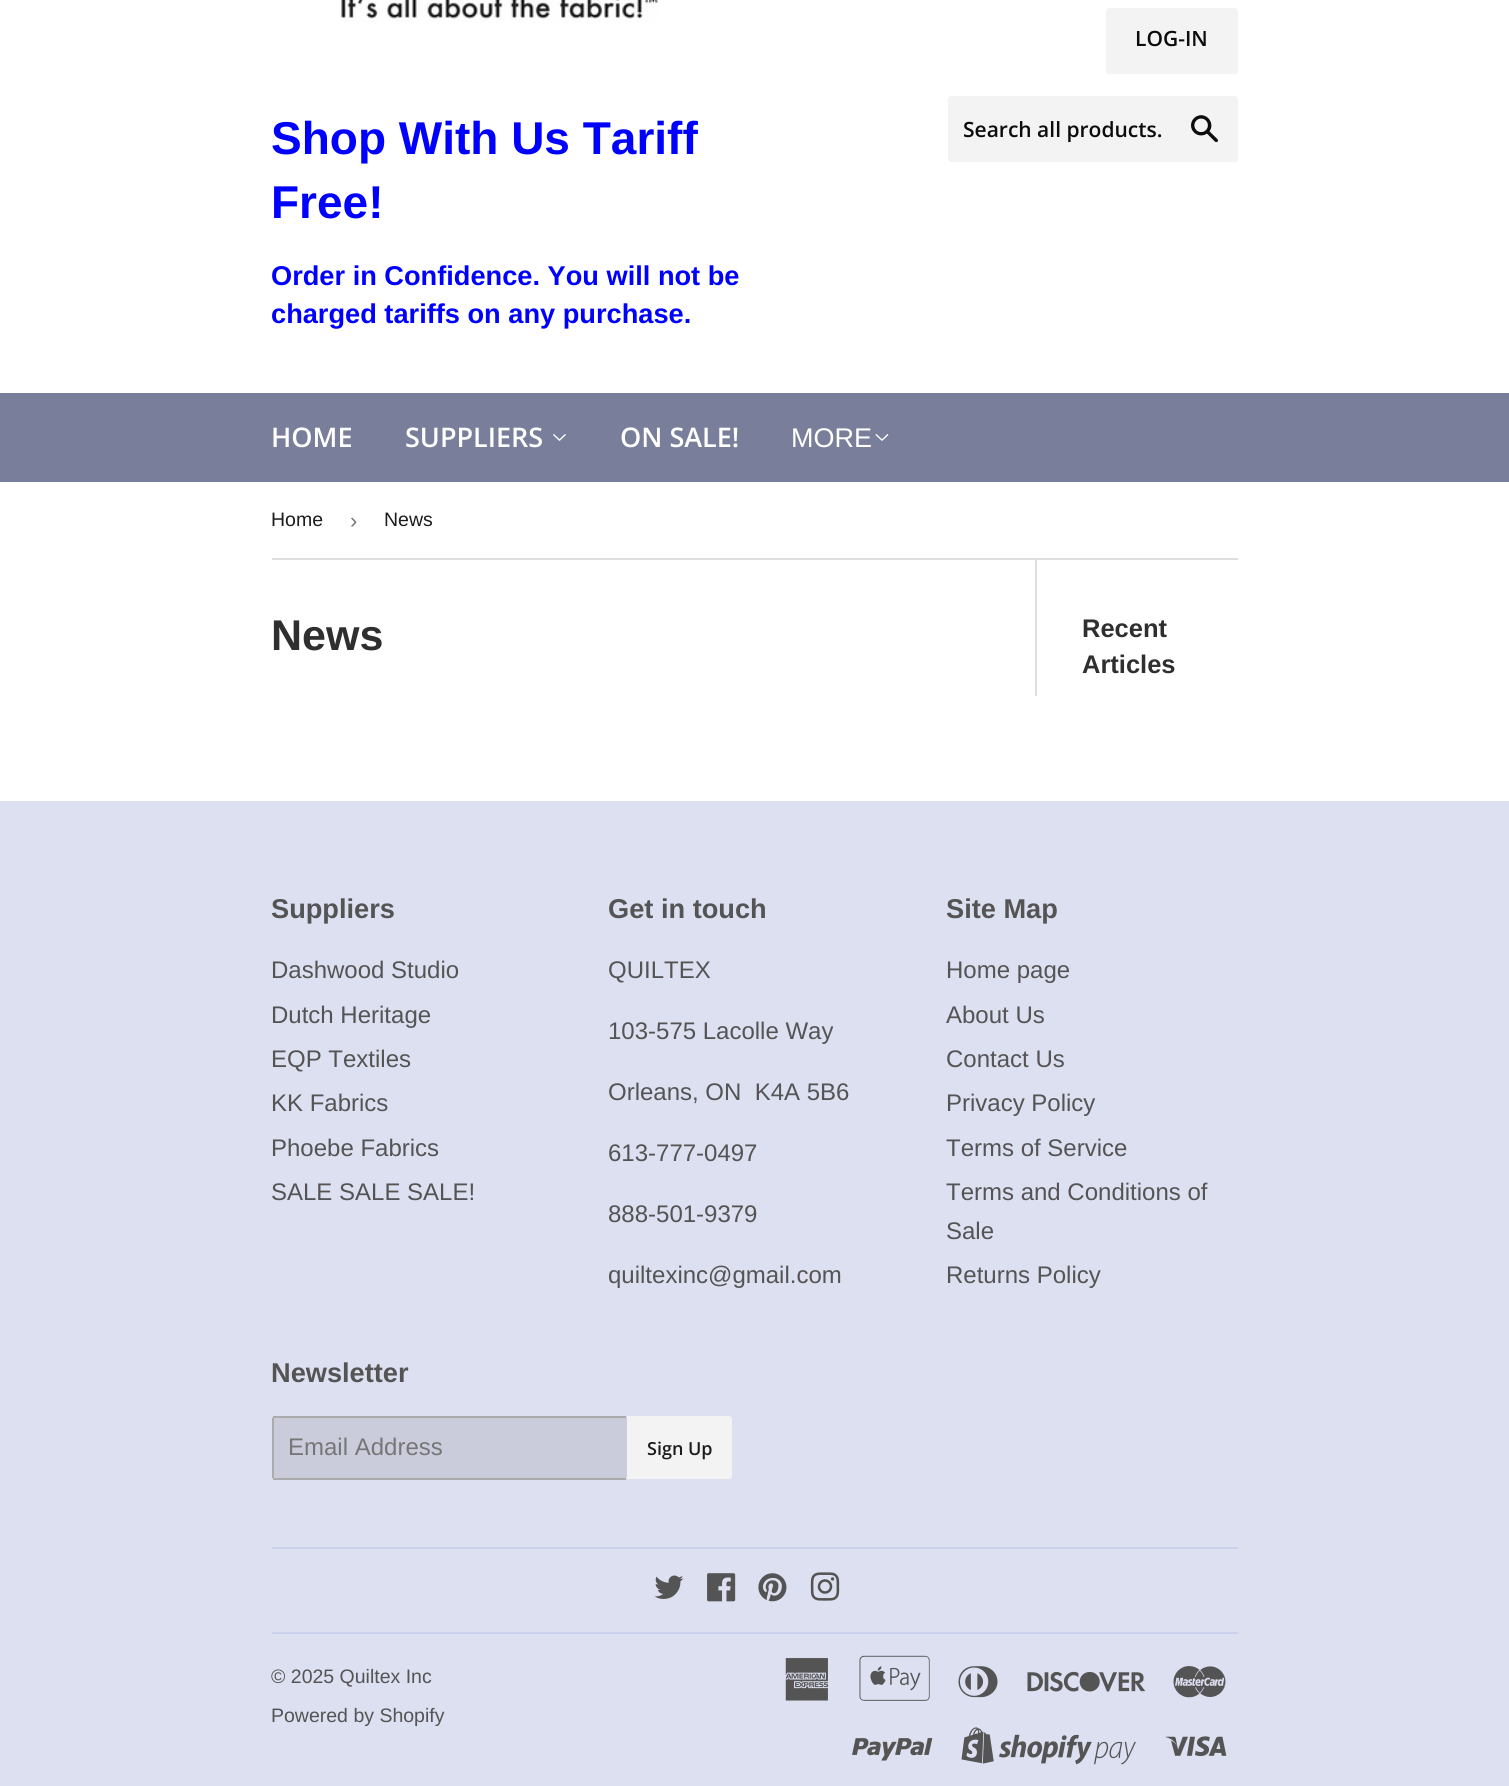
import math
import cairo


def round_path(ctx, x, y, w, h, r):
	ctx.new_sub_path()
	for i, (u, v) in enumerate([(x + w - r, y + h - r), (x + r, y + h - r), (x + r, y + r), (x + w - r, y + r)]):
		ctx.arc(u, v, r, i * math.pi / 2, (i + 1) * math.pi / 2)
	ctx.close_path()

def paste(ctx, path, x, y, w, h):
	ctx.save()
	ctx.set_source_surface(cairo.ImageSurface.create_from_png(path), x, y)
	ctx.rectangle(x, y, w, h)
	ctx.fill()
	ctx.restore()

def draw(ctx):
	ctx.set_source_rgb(1, 1, 1)
	ctx.paint()
	ctx.set_source_rgb(0.953, 0.953, 0.953)
	round_path(ctx, 1106, 8, 132, 66, 3)
	ctx.fill()
	ctx.select_font_face('Open Sans SemiBold')
	ctx.set_font_size(21)
	ctx.set_source_rgb(0.051, 0.047, 0.047)
	ctx.move_to(1135, 46)
	ctx.show_text('LOG-IN')
	ctx.set_source_rgb(0.953, 0.953, 0.953)
	round_path(ctx, 948, 96, 290, 66, 3)
	ctx.fill()
	ctx.set_source_rgb(0.051, 0.047, 0.047)
	ctx.move_to(963, 137)
	ctx.show_text('Search all products.')
	paste(ctx, 'media/1.png', 1191, 115, 27, 28)
	paste(ctx, 'media/2.png', 339, 0, 319, 22)
	ctx.select_font_face('Liberation Sans', cairo.FONT_SLANT_NORMAL, cairo.FONT_WEIGHT_BOLD)
	ctx.set_font_size(46)
	ctx.set_source_rgb(0, 0, 1)
	ctx.move_to(271, 154)
	ctx.show_text('Shop With Us Tariff')
	ctx.move_to(271, 218)
	ctx.show_text('Free!')
	ctx.set_font_size(27.2)
	ctx.move_to(271, 285)
	ctx.show_text('Order in Confidence. You will not be')
	ctx.move_to(271, 323)
	ctx.show_text('charged tariffs on any purchase.')
	ctx.set_source_rgb(0.475, 0.498, 0.608)
	ctx.rectangle(0, 393, 1509, 89)
	ctx.fill()
	ctx.select_font_face('Open Sans SemiBold')
	ctx.set_font_size(27)
	ctx.set_source_rgb(1, 1, 1)
	ctx.move_to(271, 447)
	ctx.show_text('HOME')
	ctx.move_to(405, 447)
	ctx.show_text('SUPPLIERS')
	paste(ctx, 'media/3.png', 553, 434, 13, 7)
	ctx.move_to(620, 447)
	ctx.show_text('ON SALE!')
	ctx.select_font_face('Liberation Sans')
	ctx.move_to(791, 447)
	ctx.show_text('MORE')
	paste(ctx, 'media/4.png', 875, 434, 14, 7)
	ctx.set_source_rgb(0.871, 0.871, 0.871)
	ctx.rectangle(272, 558, 966, 2)
	ctx.fill()
	ctx.set_font_size(19.5)
	ctx.set_source_rgb(0.114, 0.11, 0.11)
	ctx.move_to(271, 526)
	ctx.show_text('Home')
	ctx.set_font_size(22)
	ctx.set_source_rgb(0.463, 0.463, 0.463)
	ctx.move_to(350, 528)
	ctx.show_text('›')
	ctx.set_font_size(19.5)
	ctx.set_source_rgb(0.114, 0.11, 0.11)
	ctx.move_to(384, 526)
	ctx.show_text('News')
	ctx.select_font_face('Liberation Sans', cairo.FONT_SLANT_NORMAL, cairo.FONT_WEIGHT_BOLD)
	ctx.set_font_size(43)
	ctx.set_source_rgb(0.184, 0.184, 0.184)
	ctx.move_to(271, 650)
	ctx.show_text('News')
	ctx.set_source_rgb(0.871, 0.871, 0.871)
	ctx.rectangle(1035, 560, 2, 136)
	ctx.fill()
	ctx.set_font_size(25.5)
	ctx.set_source_rgb(0.184, 0.184, 0.184)
	ctx.move_to(1082, 637)
	ctx.show_text('Recent')
	ctx.move_to(1082, 673)
	ctx.show_text('Articles')
	ctx.set_source_rgb(0.867, 0.878, 0.945)
	ctx.rectangle(0, 801, 1509, 985)
	ctx.fill()
	ctx.set_font_size(27.2)
	ctx.set_source_rgb(0.329, 0.329, 0.329)
	ctx.move_to(271, 918)
	ctx.show_text('Suppliers')
	ctx.select_font_face('Liberation Sans')
	ctx.set_font_size(24)
	for x, y, s in [
		(271, 978, 'Dashwood Studio'),
		(271, 1023, 'Dutch Heritage'),
		(271, 1067, 'EQP Textiles'),
		(271, 1111, 'KK Fabrics'),
		(271, 1156, 'Phoebe Fabrics'),
		(271, 1200, 'SALE SALE SALE!'),
	]:
		ctx.move_to(x, y)
		ctx.show_text(s)
	ctx.select_font_face('Liberation Sans', cairo.FONT_SLANT_NORMAL, cairo.FONT_WEIGHT_BOLD)
	ctx.set_font_size(27.2)
	ctx.move_to(608, 918)
	ctx.show_text('Get in touch')
	ctx.select_font_face('Liberation Sans')
	ctx.set_font_size(24)
	for x, y, s in [
		(608, 978, 'QUILTEX'),
		(608, 1039, '103-575 Lacolle Way'),
		(608, 1100, 'Orleans, ON  K4A 5B6'),
		(608, 1161, '613-777-0497'),
		(608, 1222, '888-501-9379'),
		(608, 1283, 'quiltexinc@gmail.com'),
	]:
		ctx.move_to(x, y)
		ctx.show_text(s)
	ctx.select_font_face('Liberation Sans', cairo.FONT_SLANT_NORMAL, cairo.FONT_WEIGHT_BOLD)
	ctx.set_font_size(27.2)
	ctx.move_to(946, 918)
	ctx.show_text('Site Map')
	ctx.select_font_face('Liberation Sans')
	ctx.set_font_size(24)
	for x, y, s in [
		(946, 978, 'Home page'),
		(946, 1023, 'About Us'),
		(946, 1067, 'Contact Us'),
		(946, 1111, 'Privacy Policy'),
		(946, 1156, 'Terms of Service'),
		(946, 1200, 'Terms and Conditions of'),
		(946, 1239, 'Sale'),
		(946, 1283, 'Returns Policy'),
	]:
		ctx.move_to(x, y)
		ctx.show_text(s)
	ctx.select_font_face('Liberation Sans', cairo.FONT_SLANT_NORMAL, cairo.FONT_WEIGHT_BOLD)
	ctx.set_font_size(27.2)
	ctx.move_to(271, 1382)
	ctx.show_text('Newsletter')
	ctx.set_source_rgb(0.792, 0.8, 0.863)
	round_path(ctx, 272, 1416, 355, 63, 3)
	ctx.fill()
	ctx.set_source_rgb(0.671, 0.671, 0.671)
	ctx.rectangle(273, 1416, 353, 2)
	ctx.rectangle(273, 1478, 353, 2)
	ctx.rectangle(272, 1418, 2, 60)
	ctx.fill()
	ctx.select_font_face('Liberation Sans')
	ctx.set_font_size(24)
	ctx.set_source_rgb(0.463, 0.463, 0.463)
	ctx.move_to(288, 1455)
	ctx.show_text('Email Address')
	ctx.set_source_rgb(0.953, 0.953, 0.953)
	ctx.new_path()
	ctx.move_to(627, 1416)
	ctx.line_to(729, 1416)
	ctx.curve_to(730.5, 1416, 732, 1417.5, 732, 1419)
	ctx.line_to(732, 1476)
	ctx.curve_to(732, 1477.5, 730.5, 1479, 729, 1479)
	ctx.line_to(627, 1479)
	ctx.close_path()
	ctx.fill()
	ctx.select_font_face('Open Sans SemiBold')
	ctx.set_font_size(18)
	ctx.set_source_rgb(0.114, 0.11, 0.11)
	ctx.move_to(647, 1455)
	ctx.show_text('Sign Up')
	ctx.set_source_rgb(0.796, 0.816, 0.918)
	ctx.rectangle(272, 1547, 966, 2)
	ctx.fill()
	paste(ctx, 'media/5.png', 654, 1575, 30, 24)
	paste(ctx, 'media/6.png', 707, 1573, 29, 29)
	paste(ctx, 'media/7.png', 758, 1573, 29, 29)
	paste(ctx, 'media/8.png', 810, 1572, 30, 29)
	ctx.rectangle(272, 1632, 966, 2)
	ctx.fill()
	ctx.select_font_face('Liberation Sans')
	ctx.set_font_size(19.5)
	ctx.set_source_rgb(0.329, 0.329, 0.329)
	ctx.move_to(271, 1683)
	ctx.show_text('© 2025 Quiltex Inc')
	ctx.move_to(271, 1722)
	ctx.show_text('Powered by Shopify')
	paste(ctx, 'media/9.png', 785, 1658, 44, 43)
	paste(ctx, 'media/10.png', 859, 1655, 71, 46)
	paste(ctx, 'media/11.png', 958, 1666, 40, 32)
	paste(ctx, 'media/12.png', 1027, 1671, 119, 21)
	paste(ctx, 'media/13.png', 1173, 1666, 53, 32)
	paste(ctx, 'media/14.png', 852, 1738, 81, 23)
	paste(ctx, 'media/15.png', 961, 1727, 175, 38)
	paste(ctx, 'media/16.png', 1165, 1736, 62, 20)


surface = cairo.ImageSurface(cairo.FORMAT_RGB24, 1509, 1786)
ctx = cairo.Context(surface)
options = cairo.FontOptions()
options.set_hint_metrics(cairo.HINT_METRICS_OFF)
options.set_hint_style(cairo.HINT_STYLE_NONE)
ctx.set_font_options(options)
ctx.set_miter_limit(4)
draw(ctx)
surface.write_to_png('image.png')
